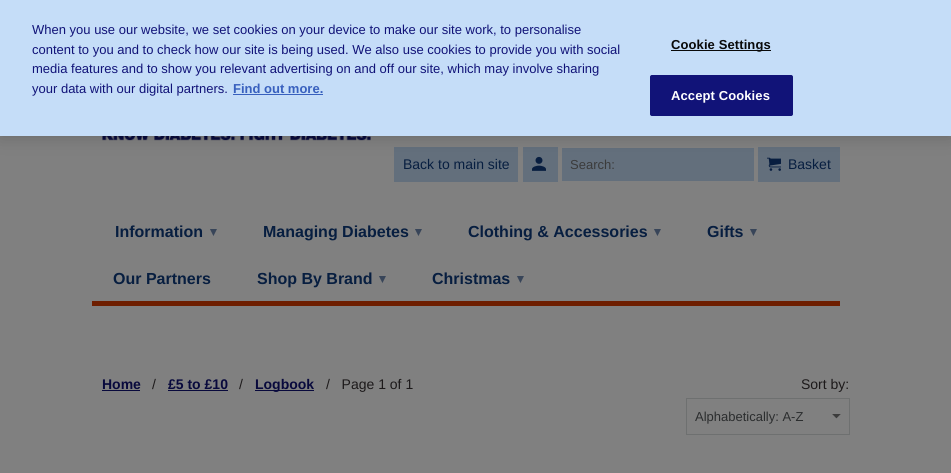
import math
import cairo


def write_spaced(ctx, x, y, s, letter, word):
	ctx.move_to(x, y)
	for ch in s:
		ctx.show_text(ch)
		ctx.rel_move_to(letter + word * (ch == ' '), 0)

def round_path(ctx, x, y, w, h, r):
	ctx.new_sub_path()
	for i, (u, v) in enumerate([(x + w - r, y + h - r), (x + r, y + h - r), (x + r, y + r), (x + w - r, y + r)]):
		ctx.arc(u, v, r, i * math.pi / 2, (i + 1) * math.pi / 2)
	ctx.close_path()

def blur_box(ctx, x, y, w, h, r, blur, alpha):
	ctx.push_group_with_content(cairo.CONTENT_ALPHA)
	ctx.set_operator(cairo.OPERATOR_SOURCE)
	for i in range(15, -16, -2):
		e = blur * i / 6
		if min(w, h) + 2 * e > 0:
			ctx.set_source_rgba(0, 0, 0, alpha * math.erfc((i - 1) / 8.5) / 2)
			round_path(ctx, x - e, y - e, w + 2 * e, h + 2 * e, max(0, min(r + e + blur * .6, min(w, h) / 2 + e)))
			ctx.fill()
	ctx.mask(ctx.pop_group())

def paste(ctx, path, x, y, w, h):
	ctx.save()
	ctx.set_source_surface(cairo.ImageSurface.create_from_png(path), x, y)
	ctx.rectangle(x, y, w, h)
	ctx.fill()
	ctx.restore()

def draw(ctx):
	ctx.set_source_rgb(0.502, 0.502, 0.502)
	ctx.paint()
	paste(ctx, 'media/1.png', 102, 136, 269, 5)
	ctx.set_source_rgb(0.388, 0.435, 0.486)
	ctx.rectangle(394, 147, 124, 35)
	ctx.fill()
	ctx.rectangle(523, 147, 35, 35)
	ctx.fill()
	paste(ctx, 'media/2.png', 532, 156, 14, 15)
	ctx.rectangle(562, 148, 192, 33)
	ctx.fill()
	ctx.rectangle(758, 147, 82, 35)
	ctx.fill()
	paste(ctx, 'media/3.png', 767, 157, 14, 14)
	ctx.set_source_rgb(0, 0, 0)
	blur_box(ctx, 0, 0, 951, 136, 0, 9, 0.2)
	ctx.set_source_rgb(0.773, 0.867, 0.969)
	ctx.rectangle(0, 0, 951, 136)
	ctx.fill()
	ctx.select_font_face('Liberation Sans')
	ctx.set_font_size(13)
	ctx.set_source_rgb(0.067, 0.078, 0.471)
	for x, y, s in [
		(32, 34, 'When you use our website, we set cookies on your device to make our site work, to personalise'),
		(32, 54, 'content to you and to check how our site is being used. We also use cookies to provide you with social'),
		(32, 73, 'media features and to show you relevant advertising on and off our site, which may involve sharing'),
		(32, 93, 'your data with our digital partners.'),
	]:
		ctx.move_to(x, y)
		ctx.show_text(s)
	ctx.select_font_face('Liberation Sans', cairo.FONT_SLANT_NORMAL, cairo.FONT_WEIGHT_BOLD)
	ctx.set_source_rgb(0.22, 0.376, 0.745)
	ctx.move_to(233, 93)
	ctx.show_text('Find out more.')
	ctx.rectangle(233, 94, 90, 1)
	ctx.fill()
	ctx.set_source_rgb(0.039, 0.039, 0.039)
	ctx.rectangle(671, 50, 100, 1)
	ctx.fill()
	write_spaced(ctx, 671, 49, 'Cookie Settings', 0.1, 0)
	ctx.set_source_rgb(0.067, 0.078, 0.471)
	round_path(ctx, 650.5, 75.5, 142, 40, 1.5)
	ctx.fill_preserve()
	ctx.set_line_width(1)
	ctx.stroke()
	ctx.set_source_rgb(1, 1, 1)
	write_spaced(ctx, 671, 100, 'Accept Cookies', 0.1, 0)
	ctx.select_font_face('Liberation Sans')
	ctx.set_font_size(14)
	ctx.set_source_rgb(0.031, 0.118, 0.251)
	ctx.move_to(403, 169)
	ctx.show_text('Back to main site')
	ctx.set_font_size(13)
	ctx.set_source_rgb(0.231, 0.231, 0.231)
	ctx.move_to(570, 169)
	ctx.show_text('Search:')
	ctx.set_font_size(14)
	ctx.set_source_rgb(0.031, 0.118, 0.251)
	ctx.move_to(788, 169)
	ctx.show_text('Basket')
	ctx.set_source_rgb(0.431, 0.118, 0)
	ctx.rectangle(92, 301, 748, 5)
	ctx.fill()
	ctx.select_font_face('Liberation Sans', cairo.FONT_SLANT_NORMAL, cairo.FONT_WEIGHT_BOLD)
	ctx.set_font_size(16)
	ctx.set_source_rgb(0.031, 0.118, 0.251)
	ctx.move_to(115, 237)
	ctx.show_text('Information')
	ctx.select_font_face('DejaVu Sans', cairo.FONT_SLANT_NORMAL, cairo.FONT_WEIGHT_BOLD)
	ctx.set_font_size(13)
	ctx.set_source_rgb(0.22, 0.271, 0.349)
	ctx.move_to(210, 236)
	ctx.show_text('▾')
	ctx.select_font_face('Liberation Sans', cairo.FONT_SLANT_NORMAL, cairo.FONT_WEIGHT_BOLD)
	ctx.set_font_size(16)
	ctx.set_source_rgb(0.031, 0.118, 0.251)
	ctx.move_to(263, 237)
	ctx.show_text('Managing Diabetes')
	ctx.select_font_face('DejaVu Sans', cairo.FONT_SLANT_NORMAL, cairo.FONT_WEIGHT_BOLD)
	ctx.set_font_size(13)
	ctx.set_source_rgb(0.22, 0.271, 0.349)
	ctx.move_to(415, 236)
	ctx.show_text('▾')
	ctx.select_font_face('Liberation Sans', cairo.FONT_SLANT_NORMAL, cairo.FONT_WEIGHT_BOLD)
	ctx.set_font_size(16)
	ctx.set_source_rgb(0.031, 0.118, 0.251)
	ctx.move_to(468, 237)
	ctx.show_text('Clothing & Accessories')
	ctx.select_font_face('DejaVu Sans', cairo.FONT_SLANT_NORMAL, cairo.FONT_WEIGHT_BOLD)
	ctx.set_font_size(13)
	ctx.set_source_rgb(0.22, 0.271, 0.349)
	ctx.move_to(654, 236)
	ctx.show_text('▾')
	ctx.select_font_face('Liberation Sans', cairo.FONT_SLANT_NORMAL, cairo.FONT_WEIGHT_BOLD)
	ctx.set_font_size(16)
	ctx.set_source_rgb(0.031, 0.118, 0.251)
	ctx.move_to(707, 237)
	ctx.show_text('Gifts')
	ctx.select_font_face('DejaVu Sans', cairo.FONT_SLANT_NORMAL, cairo.FONT_WEIGHT_BOLD)
	ctx.set_font_size(13)
	ctx.set_source_rgb(0.22, 0.271, 0.349)
	ctx.move_to(750, 236)
	ctx.show_text('▾')
	ctx.select_font_face('Liberation Sans', cairo.FONT_SLANT_NORMAL, cairo.FONT_WEIGHT_BOLD)
	ctx.set_font_size(16)
	ctx.set_source_rgb(0.031, 0.118, 0.251)
	ctx.move_to(113, 284)
	ctx.show_text('Our Partners')
	ctx.move_to(257, 284)
	ctx.show_text('Shop By Brand')
	ctx.select_font_face('DejaVu Sans', cairo.FONT_SLANT_NORMAL, cairo.FONT_WEIGHT_BOLD)
	ctx.set_font_size(13)
	ctx.set_source_rgb(0.22, 0.271, 0.349)
	ctx.move_to(379, 283)
	ctx.show_text('▾')
	ctx.select_font_face('Liberation Sans', cairo.FONT_SLANT_NORMAL, cairo.FONT_WEIGHT_BOLD)
	ctx.set_font_size(16)
	ctx.set_source_rgb(0.031, 0.118, 0.251)
	ctx.move_to(432, 284)
	ctx.show_text('Christmas')
	ctx.select_font_face('DejaVu Sans', cairo.FONT_SLANT_NORMAL, cairo.FONT_WEIGHT_BOLD)
	ctx.set_font_size(13)
	ctx.set_source_rgb(0.22, 0.271, 0.349)
	ctx.move_to(517, 283)
	ctx.show_text('▾')
	ctx.select_font_face('Liberation Sans', cairo.FONT_SLANT_NORMAL, cairo.FONT_WEIGHT_BOLD)
	ctx.set_font_size(14)
	ctx.set_source_rgb(0.035, 0.039, 0.235)
	ctx.move_to(102, 389)
	ctx.show_text('Home')
	ctx.rectangle(102, 390, 38, 1)
	ctx.fill()
	ctx.select_font_face('Liberation Sans')
	ctx.set_source_rgb(0.11, 0.098, 0.102)
	ctx.move_to(152, 389)
	ctx.show_text('/')
	ctx.select_font_face('Liberation Sans', cairo.FONT_SLANT_NORMAL, cairo.FONT_WEIGHT_BOLD)
	ctx.set_source_rgb(0.035, 0.039, 0.235)
	ctx.move_to(168, 389)
	ctx.show_text('£5 to £10')
	ctx.rectangle(168, 390, 60, 1)
	ctx.fill()
	ctx.select_font_face('Liberation Sans')
	ctx.set_source_rgb(0.11, 0.098, 0.102)
	ctx.move_to(239, 389)
	ctx.show_text('/')
	ctx.set_source_rgb(0.035, 0.039, 0.235)
	ctx.rectangle(255, 390, 59, 1)
	ctx.fill()
	ctx.select_font_face('Liberation Sans', cairo.FONT_SLANT_NORMAL, cairo.FONT_WEIGHT_BOLD)
	ctx.move_to(255, 389)
	ctx.show_text('Logbook')
	ctx.select_font_face('Liberation Sans')
	ctx.set_source_rgb(0.11, 0.098, 0.102)
	ctx.move_to(326, 389)
	ctx.show_text('/   Page 1 of 1')
	ctx.move_to(801, 389)
	ctx.show_text('Sort by:')
	paste(ctx, 'media/4.png', 832, 414, 9, 5)
	ctx.rectangle(686.5, 398.5, 163, 36)
	ctx.set_source_rgb(0.431, 0.439, 0.439)
	ctx.stroke()
	ctx.set_font_size(13)
	ctx.set_source_rgb(0.169, 0.176, 0.18)
	ctx.move_to(695, 421)
	ctx.show_text('Alphabetically: A-Z')


surface = cairo.ImageSurface(cairo.FORMAT_RGB24, 951, 473)
ctx = cairo.Context(surface)
options = cairo.FontOptions()
options.set_hint_metrics(cairo.HINT_METRICS_OFF)
options.set_hint_style(cairo.HINT_STYLE_NONE)
ctx.set_font_options(options)
ctx.set_miter_limit(4)
draw(ctx)
surface.write_to_png('image.png')
